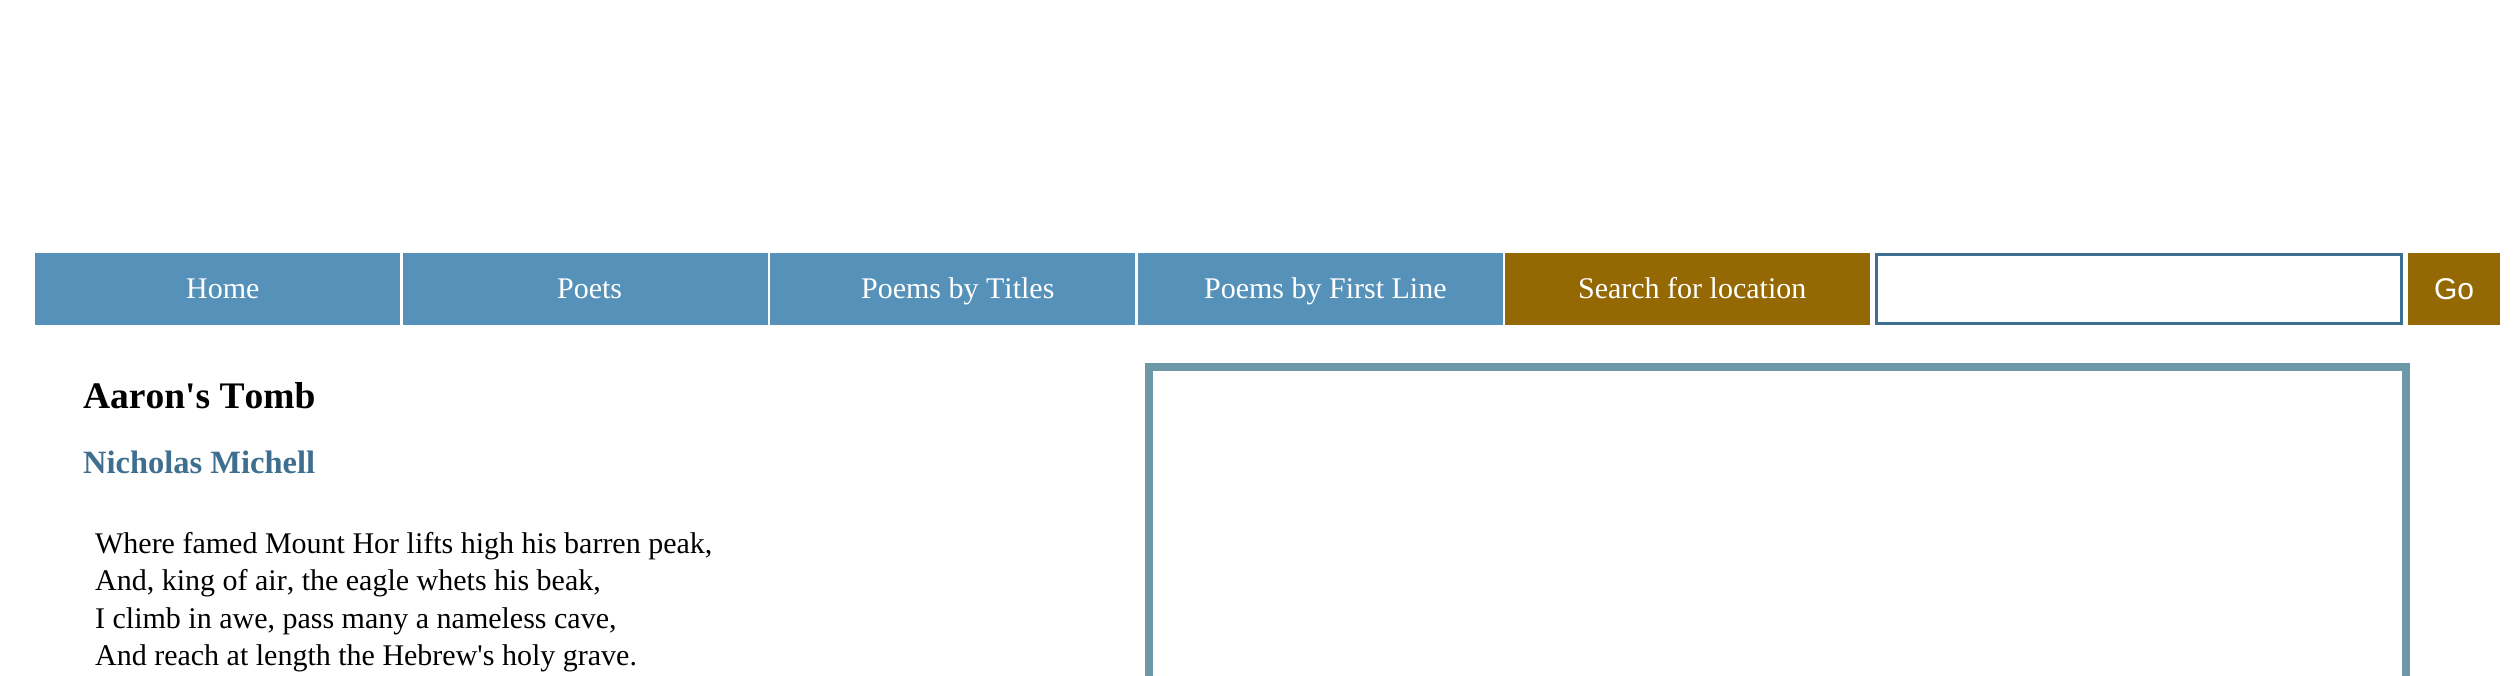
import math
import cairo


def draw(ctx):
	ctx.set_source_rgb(1, 1, 1)
	ctx.paint()
	ctx.set_source_rgb(0.337, 0.569, 0.725)
	ctx.rectangle(35, 253, 365, 72)
	ctx.fill()
	ctx.select_font_face('Liberation Serif')
	ctx.set_font_size(30)
	ctx.set_source_rgb(1, 1, 1)
	ctx.move_to(186, 298)
	ctx.show_text('Home')
	ctx.set_source_rgb(0.337, 0.569, 0.725)
	ctx.rectangle(403, 253, 365, 72)
	ctx.fill()
	ctx.set_source_rgb(1, 1, 1)
	ctx.move_to(557, 298)
	ctx.show_text('Poets')
	ctx.set_source_rgb(0.337, 0.569, 0.725)
	ctx.rectangle(770, 253, 365, 72)
	ctx.fill()
	ctx.set_source_rgb(1, 1, 1)
	ctx.move_to(861, 298)
	ctx.show_text('Poems by Titles')
	ctx.set_source_rgb(0.337, 0.569, 0.725)
	ctx.rectangle(1138, 253, 365, 72)
	ctx.fill()
	ctx.set_source_rgb(1, 1, 1)
	ctx.move_to(1204, 298)
	ctx.show_text('Poems by First Line')
	ctx.set_source_rgb(0.58, 0.412, 0.012)
	ctx.rectangle(1505, 253, 365, 72)
	ctx.fill()
	ctx.set_source_rgb(1, 1, 1)
	ctx.move_to(1578, 298)
	ctx.show_text('Search for location')
	ctx.rectangle(1876.5, 254.5, 525, 69)
	ctx.set_source_rgb(0.247, 0.435, 0.565)
	ctx.set_line_width(3)
	ctx.stroke()
	ctx.set_source_rgb(0.58, 0.412, 0.012)
	ctx.rectangle(2408, 253, 92, 72)
	ctx.fill()
	ctx.select_font_face('Liberation Sans')
	ctx.set_source_rgb(1, 1, 1)
	ctx.move_to(2434, 299)
	ctx.show_text('Go')
	ctx.select_font_face('Liberation Serif', cairo.FONT_SLANT_NORMAL, cairo.FONT_WEIGHT_BOLD)
	ctx.set_font_size(37.5)
	ctx.set_source_rgb(0, 0, 0)
	ctx.move_to(83, 408)
	ctx.show_text('Aaron\'s Tomb')
	ctx.set_font_size(32.5)
	ctx.set_source_rgb(0.247, 0.435, 0.565)
	ctx.move_to(83, 473)
	ctx.show_text('Nicholas Michell')
	ctx.select_font_face('Liberation Serif')
	ctx.set_font_size(30)
	ctx.set_source_rgb(0, 0, 0)
	for x, y, s in [
		(95, 553, 'Where famed Mount Hor lifts high his barren peak,'),
		(95, 590, 'And, king of air, the eagle whets his beak,'),
		(95, 628, 'I climb in awe, pass many a nameless cave,'),
		(95, 665, 'And reach at length the Hebrew\'s holy grave.'),
	]:
		ctx.move_to(x, y)
		ctx.show_text(s)
	ctx.rectangle(1149, 367, 1257, 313)
	ctx.set_source_rgb(0.427, 0.596, 0.659)
	ctx.set_line_width(8)
	ctx.stroke()


surface = cairo.ImageSurface(cairo.FORMAT_RGB24, 2515, 676)
ctx = cairo.Context(surface)
options = cairo.FontOptions()
options.set_hint_metrics(cairo.HINT_METRICS_OFF)
options.set_hint_style(cairo.HINT_STYLE_NONE)
ctx.set_font_options(options)
ctx.set_miter_limit(4)
draw(ctx)
surface.write_to_png('image.png')
